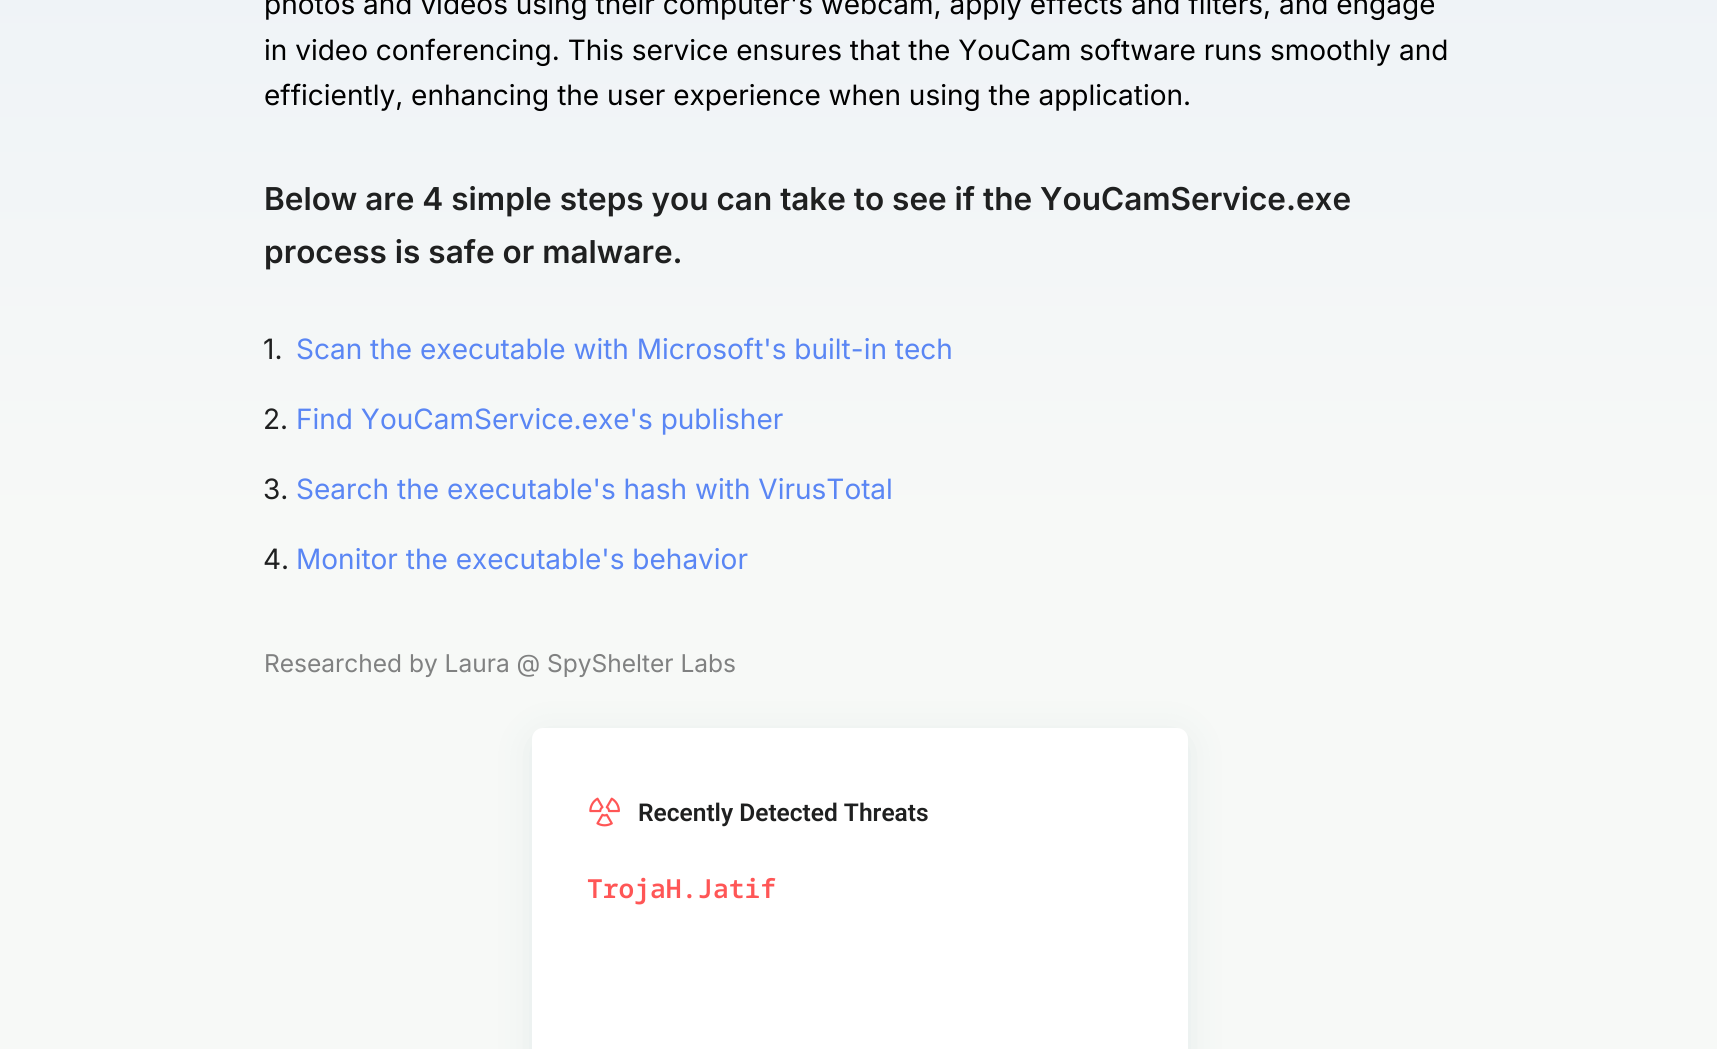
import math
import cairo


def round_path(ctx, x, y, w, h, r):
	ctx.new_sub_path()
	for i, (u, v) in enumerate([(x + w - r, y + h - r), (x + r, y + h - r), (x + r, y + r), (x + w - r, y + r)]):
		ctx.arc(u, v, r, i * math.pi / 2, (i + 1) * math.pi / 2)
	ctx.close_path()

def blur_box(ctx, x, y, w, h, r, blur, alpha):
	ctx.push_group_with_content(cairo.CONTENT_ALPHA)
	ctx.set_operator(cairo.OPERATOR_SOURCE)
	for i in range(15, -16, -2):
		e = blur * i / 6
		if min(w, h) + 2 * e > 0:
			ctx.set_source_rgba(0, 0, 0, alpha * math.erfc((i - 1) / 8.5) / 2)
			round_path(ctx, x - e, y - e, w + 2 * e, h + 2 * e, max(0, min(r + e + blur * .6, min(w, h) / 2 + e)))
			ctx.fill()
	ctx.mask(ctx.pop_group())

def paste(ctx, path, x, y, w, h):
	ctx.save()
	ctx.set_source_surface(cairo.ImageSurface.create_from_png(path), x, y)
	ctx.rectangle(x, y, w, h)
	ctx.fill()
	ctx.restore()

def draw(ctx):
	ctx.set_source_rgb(1, 1, 1)
	ctx.paint()
	gradient = cairo.LinearGradient(859, -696, 859, 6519)
	gradient.add_color_stop_rgba(0, 0.898, 0.925, 0.965, 1)
	gradient.add_color_stop_rgba(0.17, 0.969, 0.976, 0.969, 1)
	ctx.set_source(gradient)
	ctx.rectangle(0, 0, 1717, 1049)
	ctx.fill()
	ctx.select_font_face('Inter')
	ctx.set_font_size(28)
	ctx.set_source_rgb(0, 0, 0)
	for x, y, s in [
		(264, 14, 'photos and videos using their computer\'s webcam, apply effects and filters, and engage'),
		(264, 60, 'in video conferencing. This service ensures that the YouCam software runs smoothly and'),
		(264, 105, 'efficiently, enhancing the user experience when using the application.'),
	]:
		ctx.move_to(x, y)
		ctx.show_text(s)
	ctx.select_font_face('Inter SemiBold')
	ctx.set_font_size(31.5)
	ctx.set_source_rgb(0.122, 0.125, 0.125)
	ctx.move_to(264, 210)
	ctx.show_text('Below are 4 simple steps you can take to see if the YouCamService.exe')
	ctx.move_to(264, 263)
	ctx.show_text('process is safe or malware.')
	ctx.select_font_face('Inter')
	ctx.set_font_size(28)
	ctx.move_to(263, 359)
	ctx.show_text('1.')
	ctx.set_source_rgb(0.353, 0.525, 0.957)
	ctx.move_to(296, 359)
	ctx.show_text('Scan the executable with Microsoft\'s built-in tech')
	ctx.set_source_rgb(0.122, 0.125, 0.125)
	ctx.move_to(263, 429)
	ctx.show_text('2.')
	ctx.set_source_rgb(0.353, 0.525, 0.957)
	ctx.move_to(296, 429)
	ctx.show_text('Find YouCamService.exe\'s publisher')
	ctx.set_source_rgb(0.122, 0.125, 0.125)
	ctx.move_to(263, 499)
	ctx.show_text('3.')
	ctx.set_source_rgb(0.353, 0.525, 0.957)
	ctx.move_to(296, 499)
	ctx.show_text('Search the executable\'s hash with VirusTotal')
	ctx.set_source_rgb(0.122, 0.125, 0.125)
	ctx.move_to(263, 569)
	ctx.show_text('4.')
	ctx.set_source_rgb(0.353, 0.525, 0.957)
	ctx.move_to(296, 569)
	ctx.show_text('Monitor the executable\'s behavior')
	ctx.set_font_size(24.5)
	ctx.set_source_rgb(0.502, 0.506, 0.506)
	ctx.move_to(264, 672)
	ctx.show_text('Researched by Laura @ SpyShelter Labs')
	ctx.set_source_rgb(0.106, 0.357, 0.412)
	blur_box(ctx, 532, 735, 656, 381, 11, 18.5, 0.09)
	ctx.set_source_rgb(1, 1, 1)
	round_path(ctx, 532, 728, 656, 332, 11)
	ctx.fill()
	paste(ctx, 'media/1.png', 589, 797, 31, 30)
	ctx.select_font_face('Roboto SemiBold')
	ctx.set_source_rgb(0.122, 0.125, 0.125)
	ctx.move_to(638, 821)
	ctx.show_text('Recently Detected Threats')
	ctx.select_font_face('Noto Sans Mono SemiBold')
	ctx.set_font_size(26.25)
	ctx.set_source_rgb(1, 0.337, 0.337)
	ctx.move_to(587, 898)
	ctx.show_text('TrojaH.Jatif')


surface = cairo.ImageSurface(cairo.FORMAT_RGB24, 1717, 1049)
ctx = cairo.Context(surface)
options = cairo.FontOptions()
options.set_hint_metrics(cairo.HINT_METRICS_OFF)
options.set_hint_style(cairo.HINT_STYLE_NONE)
ctx.set_font_options(options)
ctx.set_miter_limit(4)
draw(ctx)
surface.write_to_png('image.png')
